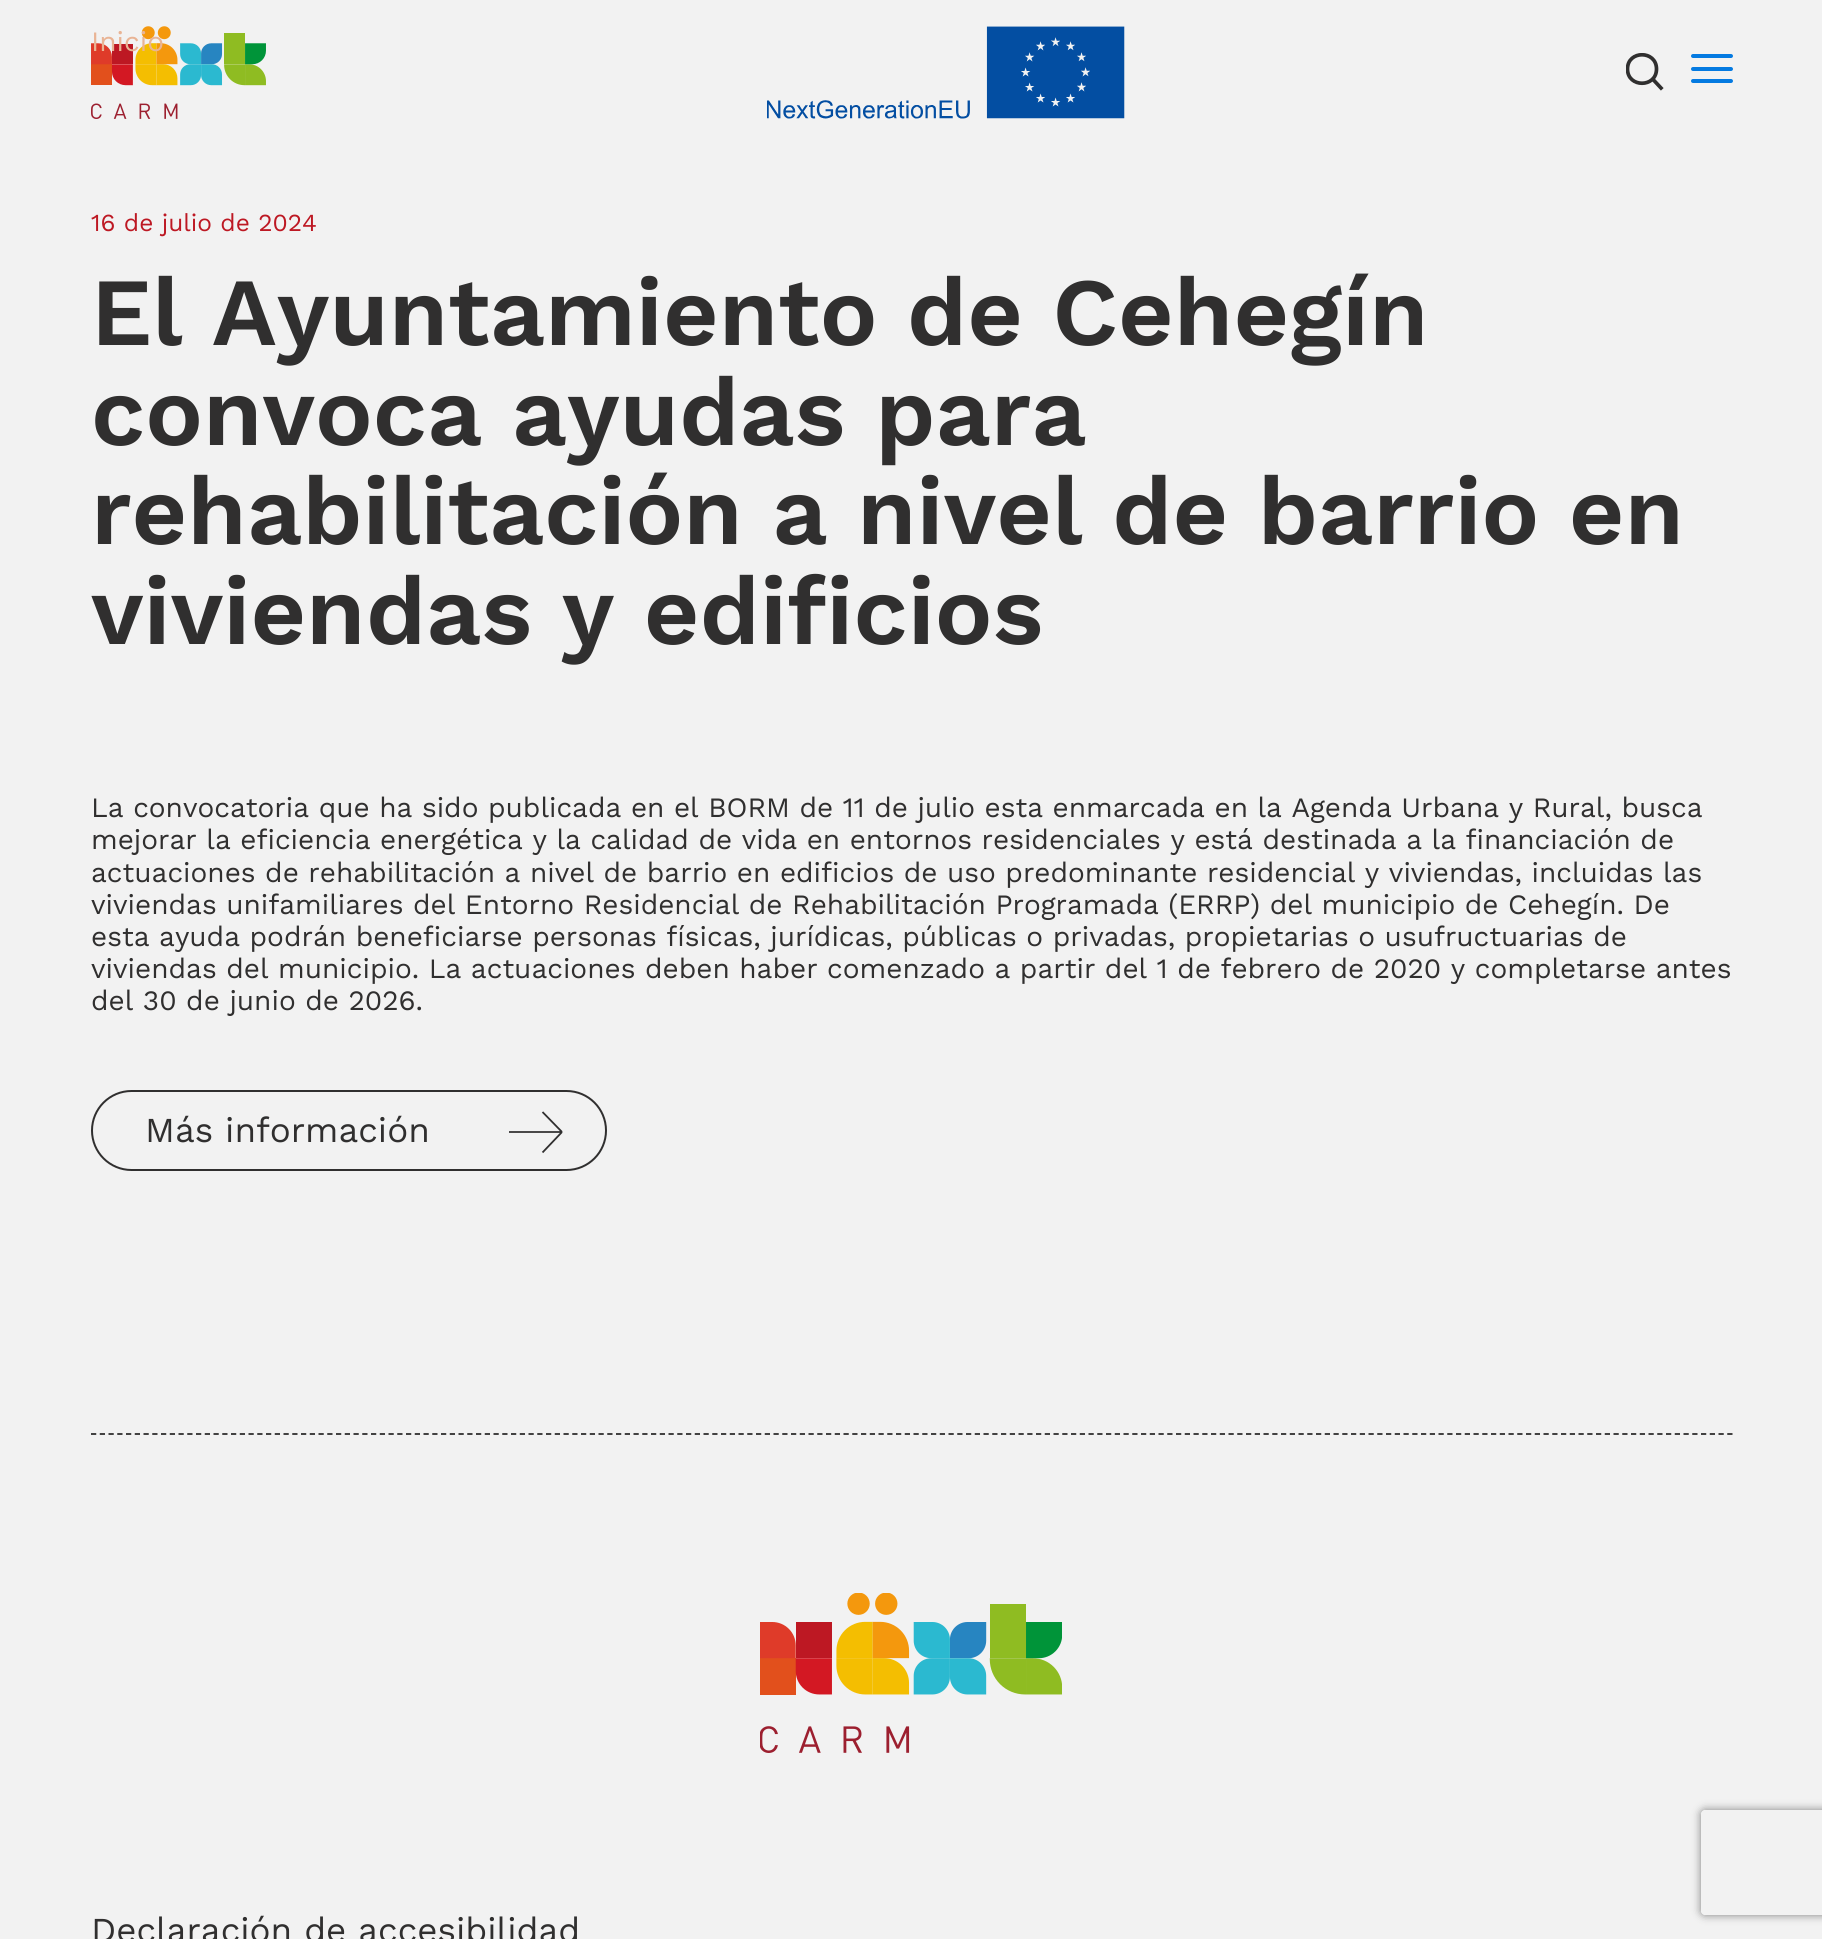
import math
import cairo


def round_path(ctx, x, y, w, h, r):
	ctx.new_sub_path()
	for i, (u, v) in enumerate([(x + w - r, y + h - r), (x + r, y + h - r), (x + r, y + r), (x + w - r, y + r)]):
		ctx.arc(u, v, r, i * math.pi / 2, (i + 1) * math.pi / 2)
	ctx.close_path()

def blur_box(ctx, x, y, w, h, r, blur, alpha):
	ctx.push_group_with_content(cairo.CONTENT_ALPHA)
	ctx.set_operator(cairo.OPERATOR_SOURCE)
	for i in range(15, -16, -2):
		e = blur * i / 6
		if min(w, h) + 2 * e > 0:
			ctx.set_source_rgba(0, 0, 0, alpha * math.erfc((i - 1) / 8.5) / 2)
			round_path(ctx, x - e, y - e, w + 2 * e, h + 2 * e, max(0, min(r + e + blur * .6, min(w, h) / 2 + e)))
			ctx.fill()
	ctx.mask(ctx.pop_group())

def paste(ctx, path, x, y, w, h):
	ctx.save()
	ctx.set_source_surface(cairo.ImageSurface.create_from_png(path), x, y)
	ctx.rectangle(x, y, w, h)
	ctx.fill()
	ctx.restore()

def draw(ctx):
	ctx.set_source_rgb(0.949, 0.949, 0.949)
	ctx.paint()
	paste(ctx, 'media/1.png', 91, 26, 175, 93)
	ctx.select_font_face('Work Sans')
	ctx.set_font_size(28)
	ctx.set_source_rgb(0.914, 0.706, 0.584)
	ctx.move_to(91, 51)
	ctx.show_text('Inicio')
	paste(ctx, 'media/2.png', 767, 26, 358, 93)
	ctx.save()
	ctx.rectangle(1626, 53, 38, 38)
	ctx.clip()
	ctx.new_path()
	ctx.move_to(1656.5, 69)
	ctx.curve_to(1656.5, 88, 1627.5, 88, 1627.5, 69)
	ctx.curve_to(1627.5, 50, 1656.5, 50, 1656.5, 69)
	ctx.close_path()
	ctx.set_source_rgb(0.188, 0.184, 0.184)
	ctx.set_line_width(3.7)
	ctx.set_line_cap(cairo.LINE_CAP_ROUND)
	ctx.set_line_join(cairo.LINE_JOIN_ROUND)
	ctx.stroke()
	ctx.restore()
	ctx.new_path()
	ctx.move_to(1661, 88)
	ctx.line_to(1654, 80.5)
	ctx.set_source_rgb(0.188, 0.184, 0.184)
	ctx.set_line_width(3.7)
	ctx.set_line_cap(cairo.LINE_CAP_SQUARE)
	ctx.set_line_join(cairo.LINE_JOIN_ROUND)
	ctx.stroke()
	ctx.set_source_rgb(0.016, 0.478, 0.882)
	round_path(ctx, 1691, 67, 42, 4, 2)
	ctx.fill()
	round_path(ctx, 1691, 54, 42, 4, 2)
	ctx.fill()
	round_path(ctx, 1691, 79, 42, 4, 2)
	ctx.fill()
	ctx.set_font_size(24.5)
	ctx.set_source_rgb(0.741, 0.094, 0.137)
	ctx.move_to(91, 231)
	ctx.show_text('16 de julio de 2024')
	ctx.select_font_face('Work Sans SemiBold')
	ctx.set_font_size(96.25)
	ctx.set_source_rgb(0.188, 0.184, 0.184)
	for x, y, s in [
		(91, 345, 'El Ayuntamiento de Cehegín'),
		(91, 445, 'convoca ayudas para'),
		(91, 544, 'rehabilitación a nivel de barrio en'),
		(91, 644, 'viviendas y edificios'),
	]:
		ctx.move_to(x, y)
		ctx.show_text(s)
	ctx.select_font_face('Work Sans')
	ctx.set_font_size(28)
	for x, y, s in [
		(91, 817, 'La convocatoria que ha sido publicada en el BORM de 11 de julio esta enmarcada en la Agenda Urbana y Rural, busca'),
		(91, 849, 'mejorar la eficiencia energética y la calidad de vida en entornos residenciales y está destinada a la financiación de'),
		(91, 882, 'actuaciones de rehabilitación a nivel de barrio en edificios de uso predominante residencial y viviendas, incluidas las'),
		(91, 914, 'viviendas unifamiliares del Entorno Residencial de Rehabilitación Programada (ERRP) del municipio de Cehegín. De'),
		(91, 946, 'esta ayuda podrán beneficiarse personas físicas, jurídicas, públicas o privadas, propietarias o usufructuarias de'),
		(91, 978, 'viviendas del municipio. La actuaciones deben haber comenzado a partir del 1 de febrero de 2020 y completarse antes'),
		(91, 1010, 'del 30 de junio de 2026.'),
	]:
		ctx.move_to(x, y)
		ctx.show_text(s)
	round_path(ctx, 92, 1091, 514, 79, 39.5)
	ctx.set_line_width(2)
	ctx.set_line_cap(cairo.LINE_CAP_BUTT)
	ctx.set_line_join(cairo.LINE_JOIN_MITER)
	ctx.stroke()
	ctx.set_font_size(35)
	ctx.move_to(145, 1142)
	ctx.show_text('Más información')
	ctx.new_path()
	ctx.move_to(542.5, 1112)
	ctx.line_to(562, 1132)
	ctx.move_to(562, 1132)
	ctx.line_to(542.5, 1152.5)
	ctx.move_to(562, 1132)
	ctx.line_to(509, 1132)
	ctx.set_line_width(1.8)
	ctx.stroke()
	ctx.new_path()
	ctx.move_to(91, 1434)
	ctx.line_to(1732.5, 1434)
	ctx.set_dash([5.25, 3.5])
	ctx.stroke()
	paste(ctx, 'media/3.png', 760, 1593, 302, 160)
	ctx.move_to(91, 1942)
	ctx.show_text('Declaración de accesibilidad')
	ctx.save()
	ctx.set_fill_rule(cairo.FILL_RULE_EVEN_ODD)
	ctx.new_path()
	ctx.move_to(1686, 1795)
	ctx.line_to(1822, 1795)
	ctx.line_to(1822, 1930)
	ctx.line_to(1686, 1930)
	ctx.close_path()
	ctx.move_to(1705, 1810)
	ctx.line_to(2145, 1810)
	ctx.curve_to(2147, 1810, 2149, 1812, 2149, 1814)
	ctx.line_to(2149, 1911)
	ctx.curve_to(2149, 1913, 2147, 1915, 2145, 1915)
	ctx.line_to(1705, 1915)
	ctx.curve_to(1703, 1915, 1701, 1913, 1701, 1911)
	ctx.line_to(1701, 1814)
	ctx.curve_to(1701, 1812, 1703, 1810, 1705, 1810)
	ctx.close_path()
	ctx.clip()
	ctx.set_source_rgb(0.502, 0.502, 0.502)
	blur_box(ctx, 1701, 1810, 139, 105, 4, 4.5, 1)
	ctx.restore()


surface = cairo.ImageSurface(cairo.FORMAT_RGB24, 1822, 1939)
ctx = cairo.Context(surface)
options = cairo.FontOptions()
options.set_hint_metrics(cairo.HINT_METRICS_OFF)
options.set_hint_style(cairo.HINT_STYLE_NONE)
ctx.set_font_options(options)
ctx.set_miter_limit(4)
draw(ctx)
surface.write_to_png('image.png')
